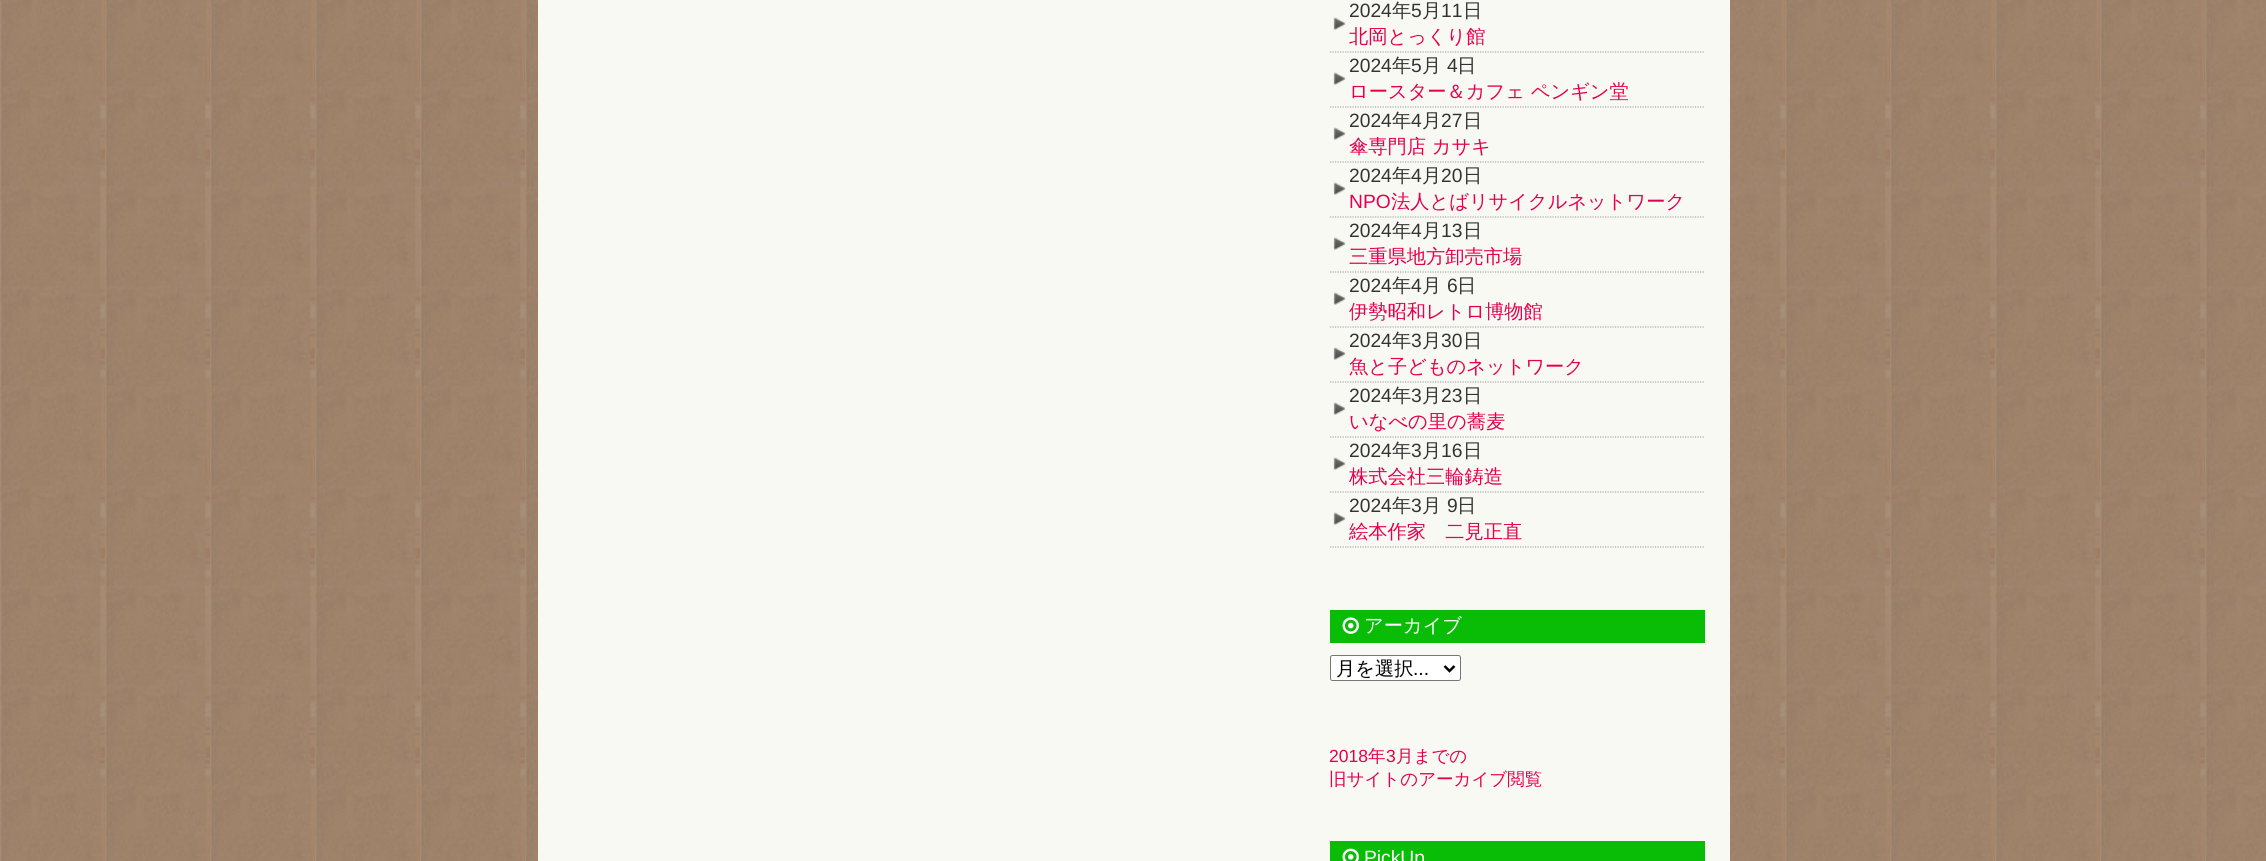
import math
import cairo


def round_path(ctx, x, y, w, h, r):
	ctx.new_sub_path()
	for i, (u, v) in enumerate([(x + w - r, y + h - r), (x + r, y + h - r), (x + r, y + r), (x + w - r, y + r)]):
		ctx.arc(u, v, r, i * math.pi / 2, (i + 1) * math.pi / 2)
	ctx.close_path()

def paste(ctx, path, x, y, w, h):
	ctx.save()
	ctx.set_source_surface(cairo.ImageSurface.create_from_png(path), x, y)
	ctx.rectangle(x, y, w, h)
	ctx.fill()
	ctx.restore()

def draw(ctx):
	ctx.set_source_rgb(1, 1, 1)
	ctx.paint()
	paste(ctx, 'media/1.png', 0, 0, 2266, 861)
	ctx.set_source_rgb(0.976, 0.973, 0.957)
	ctx.rectangle(538, 0, 1192, 861)
	ctx.fill()
	paste(ctx, 'media/2.png', 1333, 17, 13, 13)
	ctx.new_path()
	ctx.move_to(1330, 52)
	ctx.line_to(1705, 52)
	ctx.set_source_rgb(0.667, 0.667, 0.667)
	ctx.set_line_width(1.2)
	ctx.set_dash([1.25, 1.25])
	ctx.stroke()
	ctx.select_font_face('Liberation Sans')
	ctx.set_font_size(19.25)
	ctx.set_source_rgb(0.2, 0.2, 0.2)
	ctx.move_to(1349, 17)
	ctx.show_text('2024')
	ctx.select_font_face('WenQuanYi Zen Hei Medium')
	ctx.move_to(1392, 17)
	ctx.show_text('年')
	ctx.select_font_face('Liberation Sans')
	ctx.move_to(1411, 17)
	ctx.show_text('5')
	ctx.select_font_face('WenQuanYi Zen Hei Medium')
	ctx.move_to(1422, 17)
	ctx.show_text('月')
	ctx.select_font_face('Liberation Sans')
	ctx.move_to(1441, 17)
	ctx.show_text('11')
	ctx.select_font_face('WenQuanYi Zen Hei Medium')
	ctx.move_to(1463, 17)
	ctx.show_text('日')
	ctx.set_source_rgb(0.898, 0, 0.31)
	ctx.move_to(1349, 43)
	ctx.show_text('北岡とっくり館')
	paste(ctx, 'media/2.png', 1333, 72, 13, 13)
	ctx.new_path()
	ctx.move_to(1330, 107)
	ctx.line_to(1705, 107)
	ctx.set_source_rgb(0.667, 0.667, 0.667)
	ctx.stroke()
	ctx.select_font_face('Liberation Sans')
	ctx.set_source_rgb(0.2, 0.2, 0.2)
	ctx.move_to(1349, 72)
	ctx.show_text('2024')
	ctx.select_font_face('WenQuanYi Zen Hei Medium')
	ctx.move_to(1392, 72)
	ctx.show_text('年')
	ctx.select_font_face('Liberation Sans')
	ctx.move_to(1411, 72)
	ctx.show_text('5')
	ctx.select_font_face('WenQuanYi Zen Hei Medium')
	ctx.move_to(1422, 72)
	ctx.show_text('月')
	ctx.select_font_face('Liberation Sans')
	ctx.move_to(1447, 72)
	ctx.show_text('4')
	ctx.select_font_face('WenQuanYi Zen Hei Medium')
	ctx.move_to(1457, 72)
	ctx.show_text('日')
	ctx.set_source_rgb(0.898, 0, 0.31)
	ctx.move_to(1349, 98)
	ctx.show_text('ロースター＆カフェ ペンギン堂')
	paste(ctx, 'media/2.png', 1333, 127, 13, 13)
	ctx.new_path()
	ctx.move_to(1330, 162)
	ctx.line_to(1705, 162)
	ctx.set_source_rgb(0.667, 0.667, 0.667)
	ctx.stroke()
	ctx.select_font_face('Liberation Sans')
	ctx.set_source_rgb(0.2, 0.2, 0.2)
	ctx.move_to(1349, 127)
	ctx.show_text('2024')
	ctx.select_font_face('WenQuanYi Zen Hei Medium')
	ctx.move_to(1392, 127)
	ctx.show_text('年')
	ctx.select_font_face('Liberation Sans')
	ctx.move_to(1411, 127)
	ctx.show_text('4')
	ctx.select_font_face('WenQuanYi Zen Hei Medium')
	ctx.move_to(1422, 127)
	ctx.show_text('月')
	ctx.select_font_face('Liberation Sans')
	ctx.move_to(1441, 127)
	ctx.show_text('27')
	ctx.select_font_face('WenQuanYi Zen Hei Medium')
	ctx.move_to(1463, 127)
	ctx.show_text('日')
	ctx.set_source_rgb(0.898, 0, 0.31)
	ctx.move_to(1349, 153)
	ctx.show_text('傘専門店 カサキ')
	paste(ctx, 'media/2.png', 1333, 182, 13, 13)
	ctx.new_path()
	ctx.move_to(1330, 217)
	ctx.line_to(1705, 217)
	ctx.set_source_rgb(0.667, 0.667, 0.667)
	ctx.stroke()
	ctx.select_font_face('Liberation Sans')
	ctx.set_source_rgb(0.2, 0.2, 0.2)
	ctx.move_to(1349, 182)
	ctx.show_text('2024')
	ctx.select_font_face('WenQuanYi Zen Hei Medium')
	ctx.move_to(1392, 182)
	ctx.show_text('年')
	ctx.select_font_face('Liberation Sans')
	ctx.move_to(1411, 182)
	ctx.show_text('4')
	ctx.select_font_face('WenQuanYi Zen Hei Medium')
	ctx.move_to(1422, 182)
	ctx.show_text('月')
	ctx.select_font_face('Liberation Sans')
	ctx.move_to(1441, 182)
	ctx.show_text('20')
	ctx.select_font_face('WenQuanYi Zen Hei Medium')
	ctx.move_to(1463, 182)
	ctx.show_text('日')
	ctx.select_font_face('Liberation Sans')
	ctx.set_source_rgb(0.898, 0, 0.31)
	ctx.move_to(1349, 208)
	ctx.show_text('NPO')
	ctx.select_font_face('WenQuanYi Zen Hei Medium')
	ctx.move_to(1391, 208)
	ctx.show_text('法人とばリサイクルネットワーク')
	paste(ctx, 'media/2.png', 1333, 237, 13, 13)
	ctx.new_path()
	ctx.move_to(1330, 272)
	ctx.line_to(1705, 272)
	ctx.set_source_rgb(0.667, 0.667, 0.667)
	ctx.stroke()
	ctx.select_font_face('Liberation Sans')
	ctx.set_source_rgb(0.2, 0.2, 0.2)
	ctx.move_to(1349, 237)
	ctx.show_text('2024')
	ctx.select_font_face('WenQuanYi Zen Hei Medium')
	ctx.move_to(1392, 237)
	ctx.show_text('年')
	ctx.select_font_face('Liberation Sans')
	ctx.move_to(1411, 237)
	ctx.show_text('4')
	ctx.select_font_face('WenQuanYi Zen Hei Medium')
	ctx.move_to(1422, 237)
	ctx.show_text('月')
	ctx.select_font_face('Liberation Sans')
	ctx.move_to(1441, 237)
	ctx.show_text('13')
	ctx.select_font_face('WenQuanYi Zen Hei Medium')
	ctx.move_to(1463, 237)
	ctx.show_text('日')
	ctx.set_source_rgb(0.898, 0, 0.31)
	ctx.move_to(1349, 263)
	ctx.show_text('三重県地方卸売市場')
	paste(ctx, 'media/2.png', 1333, 292, 13, 13)
	ctx.new_path()
	ctx.move_to(1330, 327)
	ctx.line_to(1705, 327)
	ctx.set_source_rgb(0.667, 0.667, 0.667)
	ctx.stroke()
	ctx.select_font_face('Liberation Sans')
	ctx.set_source_rgb(0.2, 0.2, 0.2)
	ctx.move_to(1349, 292)
	ctx.show_text('2024')
	ctx.select_font_face('WenQuanYi Zen Hei Medium')
	ctx.move_to(1392, 292)
	ctx.show_text('年')
	ctx.select_font_face('Liberation Sans')
	ctx.move_to(1411, 292)
	ctx.show_text('4')
	ctx.select_font_face('WenQuanYi Zen Hei Medium')
	ctx.move_to(1422, 292)
	ctx.show_text('月')
	ctx.select_font_face('Liberation Sans')
	ctx.move_to(1447, 292)
	ctx.show_text('6')
	ctx.select_font_face('WenQuanYi Zen Hei Medium')
	ctx.move_to(1457, 292)
	ctx.show_text('日')
	ctx.set_source_rgb(0.898, 0, 0.31)
	ctx.move_to(1349, 318)
	ctx.show_text('伊勢昭和レトロ博物館')
	paste(ctx, 'media/2.png', 1333, 347, 13, 13)
	ctx.new_path()
	ctx.move_to(1330, 382)
	ctx.line_to(1705, 382)
	ctx.set_source_rgb(0.667, 0.667, 0.667)
	ctx.stroke()
	ctx.select_font_face('Liberation Sans')
	ctx.set_source_rgb(0.2, 0.2, 0.2)
	ctx.move_to(1349, 347)
	ctx.show_text('2024')
	ctx.select_font_face('WenQuanYi Zen Hei Medium')
	ctx.move_to(1392, 347)
	ctx.show_text('年')
	ctx.select_font_face('Liberation Sans')
	ctx.move_to(1411, 347)
	ctx.show_text('3')
	ctx.select_font_face('WenQuanYi Zen Hei Medium')
	ctx.move_to(1422, 347)
	ctx.show_text('月')
	ctx.select_font_face('Liberation Sans')
	ctx.move_to(1441, 347)
	ctx.show_text('30')
	ctx.select_font_face('WenQuanYi Zen Hei Medium')
	ctx.move_to(1463, 347)
	ctx.show_text('日')
	ctx.set_source_rgb(0.898, 0, 0.31)
	ctx.move_to(1349, 373)
	ctx.show_text('魚と子どものネットワーク')
	paste(ctx, 'media/2.png', 1333, 402, 13, 13)
	ctx.new_path()
	ctx.move_to(1330, 437)
	ctx.line_to(1705, 437)
	ctx.set_source_rgb(0.667, 0.667, 0.667)
	ctx.stroke()
	ctx.select_font_face('Liberation Sans')
	ctx.set_source_rgb(0.2, 0.2, 0.2)
	ctx.move_to(1349, 402)
	ctx.show_text('2024')
	ctx.select_font_face('WenQuanYi Zen Hei Medium')
	ctx.move_to(1392, 402)
	ctx.show_text('年')
	ctx.select_font_face('Liberation Sans')
	ctx.move_to(1411, 402)
	ctx.show_text('3')
	ctx.select_font_face('WenQuanYi Zen Hei Medium')
	ctx.move_to(1422, 402)
	ctx.show_text('月')
	ctx.select_font_face('Liberation Sans')
	ctx.move_to(1441, 402)
	ctx.show_text('23')
	ctx.select_font_face('WenQuanYi Zen Hei Medium')
	ctx.move_to(1463, 402)
	ctx.show_text('日')
	ctx.set_source_rgb(0.898, 0, 0.31)
	ctx.move_to(1349, 428)
	ctx.show_text('いなべの里の蕎麦')
	paste(ctx, 'media/2.png', 1333, 457, 13, 13)
	ctx.new_path()
	ctx.move_to(1330, 492)
	ctx.line_to(1705, 492)
	ctx.set_source_rgb(0.667, 0.667, 0.667)
	ctx.stroke()
	ctx.select_font_face('Liberation Sans')
	ctx.set_source_rgb(0.2, 0.2, 0.2)
	ctx.move_to(1349, 457)
	ctx.show_text('2024')
	ctx.select_font_face('WenQuanYi Zen Hei Medium')
	ctx.move_to(1392, 457)
	ctx.show_text('年')
	ctx.select_font_face('Liberation Sans')
	ctx.move_to(1411, 457)
	ctx.show_text('3')
	ctx.select_font_face('WenQuanYi Zen Hei Medium')
	ctx.move_to(1422, 457)
	ctx.show_text('月')
	ctx.select_font_face('Liberation Sans')
	ctx.move_to(1441, 457)
	ctx.show_text('16')
	ctx.select_font_face('WenQuanYi Zen Hei Medium')
	ctx.move_to(1463, 457)
	ctx.show_text('日')
	ctx.set_source_rgb(0.898, 0, 0.31)
	ctx.move_to(1349, 483)
	ctx.show_text('株式会社三輪鋳造')
	paste(ctx, 'media/2.png', 1333, 512, 13, 13)
	ctx.new_path()
	ctx.move_to(1330, 547)
	ctx.line_to(1705, 547)
	ctx.set_source_rgb(0.667, 0.667, 0.667)
	ctx.stroke()
	ctx.select_font_face('Liberation Sans')
	ctx.set_source_rgb(0.2, 0.2, 0.2)
	ctx.move_to(1349, 512)
	ctx.show_text('2024')
	ctx.select_font_face('WenQuanYi Zen Hei Medium')
	ctx.move_to(1392, 512)
	ctx.show_text('年')
	ctx.select_font_face('Liberation Sans')
	ctx.move_to(1411, 512)
	ctx.show_text('3')
	ctx.select_font_face('WenQuanYi Zen Hei Medium')
	ctx.move_to(1422, 512)
	ctx.show_text('月')
	ctx.select_font_face('Liberation Sans')
	ctx.move_to(1447, 512)
	ctx.show_text('9')
	ctx.select_font_face('WenQuanYi Zen Hei Medium')
	ctx.move_to(1457, 512)
	ctx.show_text('日')
	ctx.set_source_rgb(0.898, 0, 0.31)
	ctx.move_to(1349, 538)
	ctx.show_text('絵本作家　二見正直')
	ctx.set_source_rgb(0.039, 0.741, 0.027)
	ctx.rectangle(1330, 610, 375, 33)
	ctx.fill()
	paste(ctx, 'media/3.png', 1342, 617, 17, 17)
	ctx.set_source_rgb(1, 1, 1)
	ctx.move_to(1364, 632)
	ctx.show_text('アーカイブ')
	round_path(ctx, 1330.5, 655.5, 130, 25, 2)
	ctx.fill_preserve()
	ctx.set_source_rgb(0.463, 0.463, 0.463)
	ctx.set_line_width(1)
	ctx.set_dash([])
	ctx.stroke()
	ctx.new_path()
	ctx.move_to(1444.5, 666)
	ctx.line_to(1449.5, 671)
	ctx.line_to(1454.5, 666)
	ctx.set_source_rgb(0, 0, 0)
	ctx.set_line_width(2.5)
	ctx.stroke()
	ctx.move_to(1336, 675)
	ctx.show_text('月を選択')
	ctx.select_font_face('Liberation Sans')
	ctx.move_to(1413, 675)
	ctx.show_text('...')
	ctx.set_font_size(17.5)
	ctx.set_source_rgb(0.898, 0, 0.31)
	ctx.move_to(1329, 762)
	ctx.show_text('2018')
	ctx.select_font_face('WenQuanYi Zen Hei Medium')
	ctx.move_to(1368, 762)
	ctx.show_text('年')
	ctx.select_font_face('Liberation Sans')
	ctx.move_to(1386, 762)
	ctx.show_text('3')
	ctx.select_font_face('WenQuanYi Zen Hei Medium')
	ctx.move_to(1396, 762)
	ctx.show_text('月までの')
	ctx.move_to(1329, 785)
	ctx.show_text('旧サイトのアーカイブ閲覧')
	ctx.set_source_rgb(0.039, 0.741, 0.027)
	ctx.rectangle(1330, 841, 375, 20)
	ctx.fill()
	paste(ctx, 'media/4.png', 1342, 848, 17, 13)
	ctx.select_font_face('Liberation Sans')
	ctx.set_font_size(19.25)
	ctx.set_source_rgb(1, 1, 1)
	ctx.move_to(1364, 864)
	ctx.show_text('PickUp')


surface = cairo.ImageSurface(cairo.FORMAT_RGB24, 2266, 861)
ctx = cairo.Context(surface)
options = cairo.FontOptions()
options.set_hint_metrics(cairo.HINT_METRICS_OFF)
options.set_hint_style(cairo.HINT_STYLE_NONE)
ctx.set_font_options(options)
ctx.set_miter_limit(4)
draw(ctx)
surface.write_to_png('image.png')
